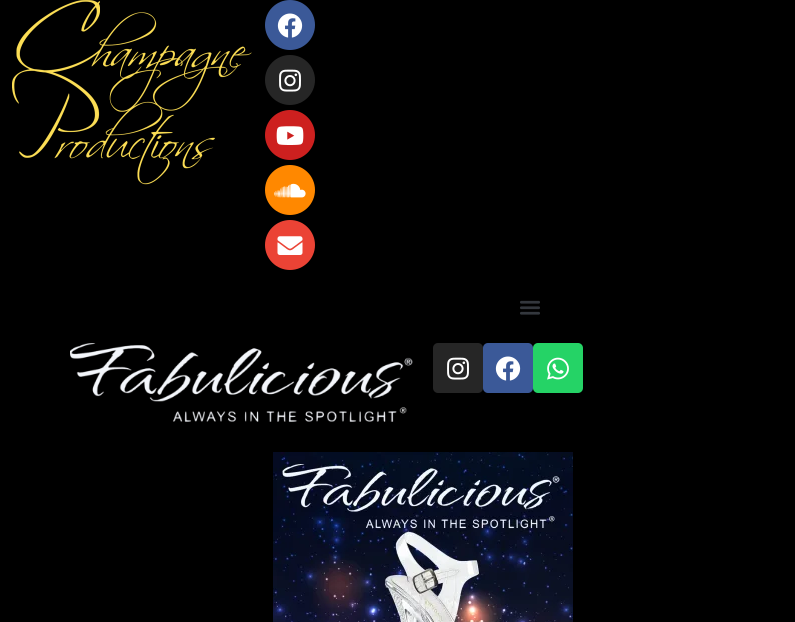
import math
import cairo


def round_path(ctx, x, y, w, h, r):
	ctx.new_sub_path()
	for i, (u, v) in enumerate([(x + w - r, y + h - r), (x + r, y + h - r), (x + r, y + r), (x + w - r, y + r)]):
		ctx.arc(u, v, r, i * math.pi / 2, (i + 1) * math.pi / 2)
	ctx.close_path()

def paste(ctx, path, x, y, w, h):
	ctx.save()
	ctx.set_source_surface(cairo.ImageSurface.create_from_png(path), x, y)
	ctx.rectangle(x, y, w, h)
	ctx.fill()
	ctx.restore()

def draw(ctx):
	ctx.set_source_rgb(0, 0, 0)
	ctx.paint()
	paste(ctx, 'media/1.png', 12, 0, 240, 185)
	ctx.set_source_rgb(0.231, 0.349, 0.596)
	ctx.arc(290, 25, 25, 0, 2 * math.pi)
	ctx.fill()
	paste(ctx, 'media/2.png', 277, 13, 26, 25)
	ctx.set_source_rgb(0.149, 0.149, 0.149)
	ctx.arc(290, 80, 25, 0, 2 * math.pi)
	ctx.fill()
	paste(ctx, 'media/3.png', 279, 69, 22, 23)
	ctx.set_source_rgb(0.804, 0.125, 0.122)
	ctx.arc(290, 135, 25, 0, 2 * math.pi)
	ctx.fill()
	paste(ctx, 'media/4.png', 276, 126, 28, 19)
	ctx.set_source_rgb(1, 0.533, 0)
	ctx.arc(290, 190, 25, 0, 2 * math.pi)
	ctx.fill()
	paste(ctx, 'media/5.png', 274, 183, 32, 15)
	ctx.set_source_rgb(0.918, 0.263, 0.208)
	ctx.arc(290, 245, 25, 0, 2 * math.pi)
	ctx.fill()
	paste(ctx, 'media/6.png', 277, 236, 26, 19)
	paste(ctx, 'media/7.png', 520, 300, 20, 15)
	paste(ctx, 'media/8.png', 70, 343, 343, 79)
	ctx.set_source_rgb(0.149, 0.149, 0.149)
	round_path(ctx, 433, 343, 50, 50, 5)
	ctx.fill()
	paste(ctx, 'media/3.png', 447, 357, 22, 23)
	ctx.set_source_rgb(0.231, 0.349, 0.596)
	round_path(ctx, 483, 343, 50, 50, 5)
	ctx.fill()
	paste(ctx, 'media/2.png', 495, 356, 26, 25)
	ctx.set_source_rgb(0.145, 0.827, 0.4)
	round_path(ctx, 533, 343, 50, 50, 5)
	ctx.fill()
	paste(ctx, 'media/9.png', 547, 357, 22, 23)
	paste(ctx, 'media/10.png', 273, 452, 300, 170)


surface = cairo.ImageSurface(cairo.FORMAT_RGB24, 795, 622)
ctx = cairo.Context(surface)
options = cairo.FontOptions()
options.set_hint_metrics(cairo.HINT_METRICS_OFF)
options.set_hint_style(cairo.HINT_STYLE_NONE)
ctx.set_font_options(options)
ctx.set_miter_limit(4)
draw(ctx)
surface.write_to_png('image.png')
